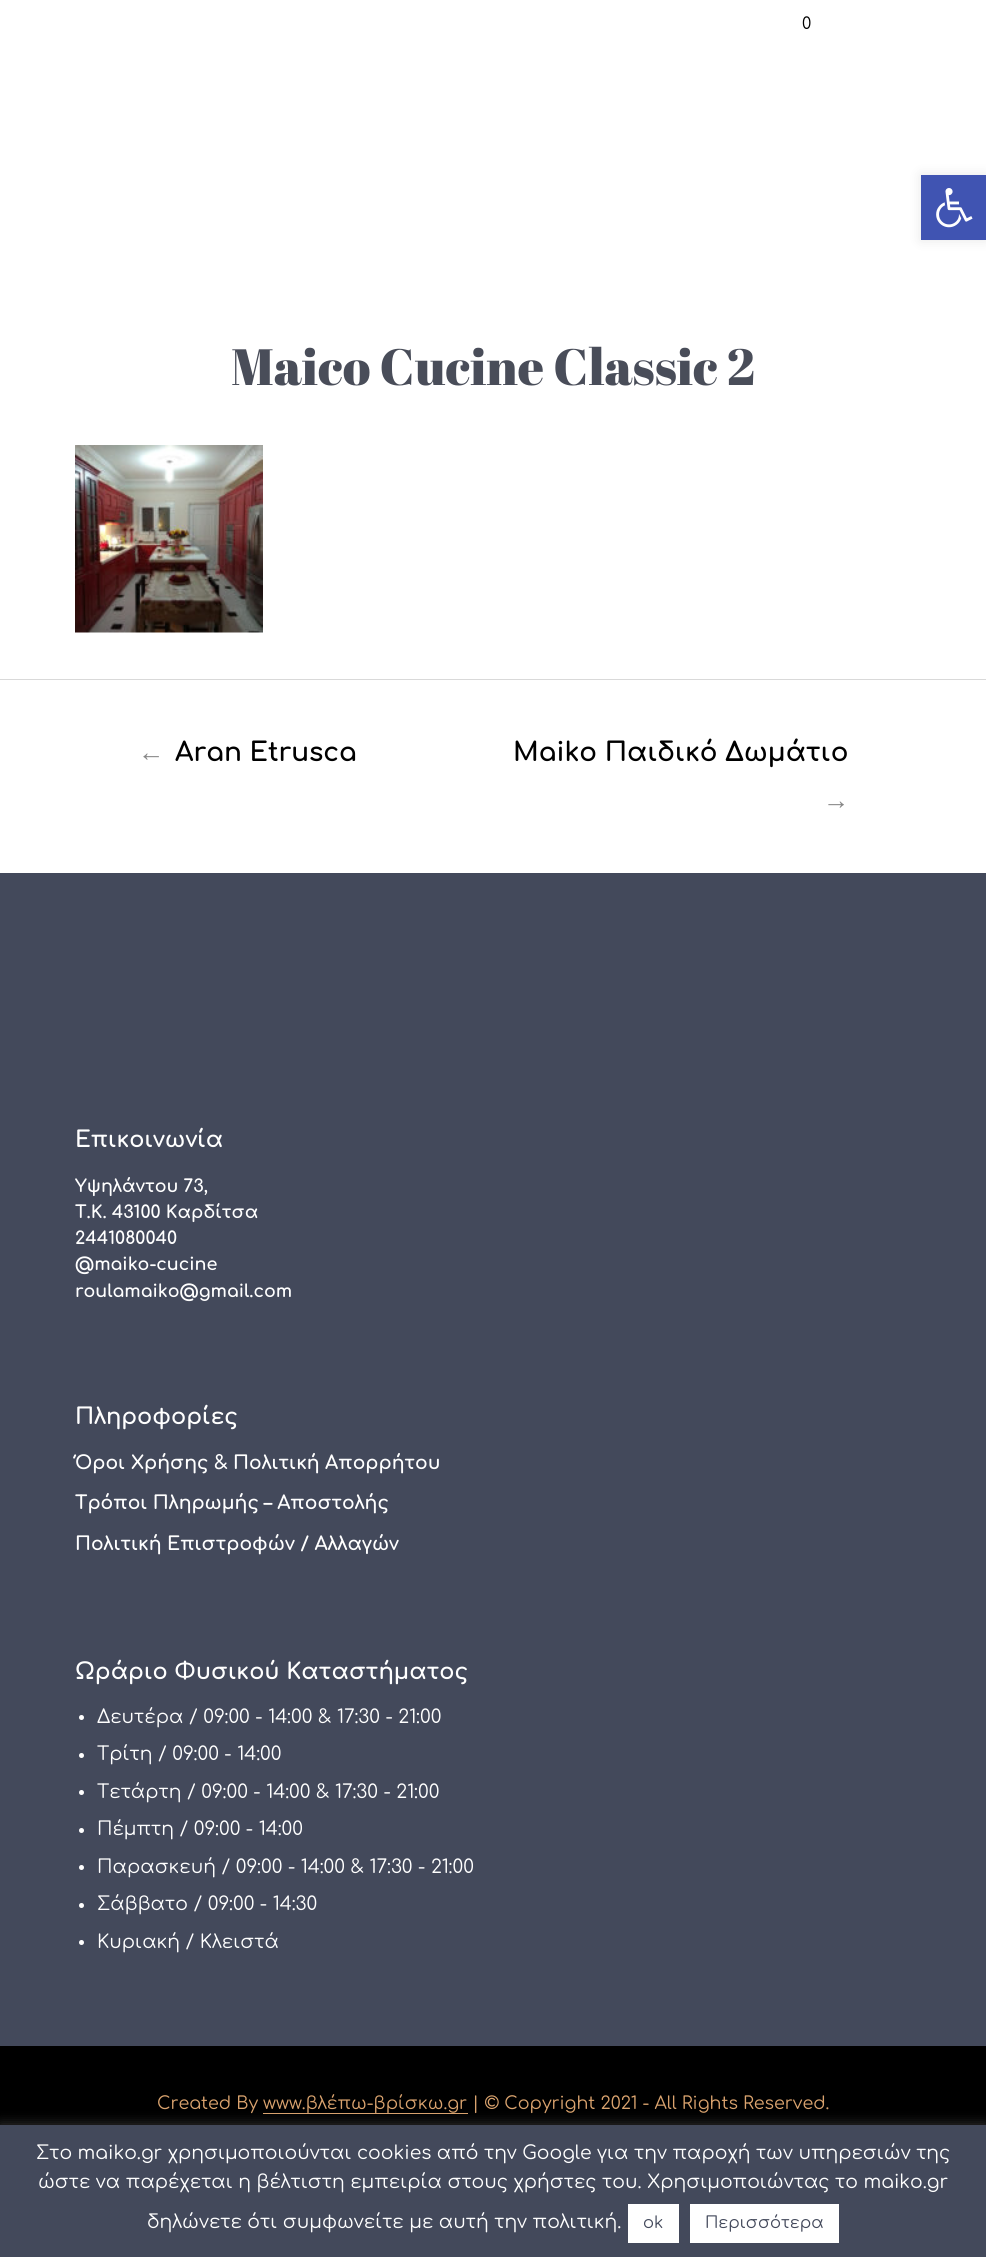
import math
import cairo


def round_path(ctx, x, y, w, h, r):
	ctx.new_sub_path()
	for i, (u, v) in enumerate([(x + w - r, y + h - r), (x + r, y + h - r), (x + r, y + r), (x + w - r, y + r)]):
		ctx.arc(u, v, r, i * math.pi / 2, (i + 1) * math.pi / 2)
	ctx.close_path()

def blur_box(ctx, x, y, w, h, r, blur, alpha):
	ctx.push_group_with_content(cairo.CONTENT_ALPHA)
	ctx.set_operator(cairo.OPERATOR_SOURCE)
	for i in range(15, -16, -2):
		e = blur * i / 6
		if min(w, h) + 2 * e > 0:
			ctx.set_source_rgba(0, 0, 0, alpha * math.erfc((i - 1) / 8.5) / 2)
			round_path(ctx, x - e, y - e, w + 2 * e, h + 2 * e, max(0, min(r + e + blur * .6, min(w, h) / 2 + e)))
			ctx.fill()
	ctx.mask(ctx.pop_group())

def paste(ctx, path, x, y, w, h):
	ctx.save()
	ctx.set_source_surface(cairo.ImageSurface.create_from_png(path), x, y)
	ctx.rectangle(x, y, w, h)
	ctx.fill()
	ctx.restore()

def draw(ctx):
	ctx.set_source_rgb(1, 1, 1)
	ctx.paint()
	ctx.select_font_face('Comfortaa')
	ctx.set_font_size(16.25)
	ctx.set_source_rgb(0, 0, 0)
	ctx.move_to(802, 29)
	ctx.show_text('0')
	ctx.select_font_face('Abril Fatface')
	ctx.set_font_size(51)
	ctx.set_source_rgb(0.286, 0.302, 0.349)
	ctx.move_to(231, 385)
	ctx.show_text('Maico Cucine Classic 2')
	paste(ctx, 'media/1.png', 75, 445, 188, 188)
	ctx.set_source_rgb(0.851, 0.851, 0.851)
	ctx.rectangle(0, 679, 986, 1)
	ctx.fill()
	ctx.select_font_face('Liberation Sans', cairo.FONT_SLANT_NORMAL, cairo.FONT_WEIGHT_BOLD)
	ctx.set_font_size(26.25)
	ctx.set_source_rgb(0.533, 0.533, 0.533)
	ctx.move_to(138, 761)
	ctx.show_text('←')
	ctx.select_font_face('Comfortaa', cairo.FONT_SLANT_NORMAL, cairo.FONT_WEIGHT_BOLD)
	ctx.set_source_rgb(0, 0, 0)
	ctx.move_to(175, 761)
	ctx.show_text('Aran Etrusca')
	ctx.move_to(513, 761)
	ctx.show_text('Maiko Παιδικό Δωμάτιο')
	ctx.select_font_face('Liberation Sans', cairo.FONT_SLANT_NORMAL, cairo.FONT_WEIGHT_BOLD)
	ctx.set_source_rgb(0.533, 0.533, 0.533)
	ctx.move_to(823, 809)
	ctx.show_text('→')
	ctx.set_source_rgb(0.263, 0.286, 0.357)
	ctx.rectangle(0, 873, 986, 1173)
	ctx.fill()
	ctx.select_font_face('Comfortaa', cairo.FONT_SLANT_NORMAL, cairo.FONT_WEIGHT_BOLD)
	ctx.set_font_size(22.5)
	ctx.set_source_rgb(1, 1, 1)
	ctx.move_to(75, 1147)
	ctx.show_text('Επικοινωνία')
	ctx.set_font_size(17.5)
	for x, y, s in [
		(75, 1192, 'Υψηλάντου 73,'),
		(75, 1218, 'Τ.Κ. 43100 Καρδίτσα'),
		(75, 1244, '2441080040'),
		(75, 1270, '@maiko-cucine'),
		(75, 1297, 'roulamaiko@gmail.com'),
	]:
		ctx.move_to(x, y)
		ctx.show_text(s)
	ctx.set_font_size(22.5)
	ctx.move_to(75, 1424)
	ctx.show_text('Πληροφορίες')
	ctx.set_font_size(18.75)
	for x, y, s in [
		(75, 1469, 'Όροι Χρήσης & Πολιτική Απορρήτου'),
		(75, 1509, 'Τρόποι Πληρωμής – Αποστολής'),
		(75, 1550, 'Πολιτική Επιστροφών / Αλλαγών'),
	]:
		ctx.move_to(x, y)
		ctx.show_text(s)
	ctx.set_font_size(22.5)
	ctx.move_to(75, 1679)
	ctx.show_text('Ωράριο Φυσικού Καταστήματος')
	ctx.new_path()
	ctx.arc(81.5, 1717.5, 2.5, 0, 2 * math.pi)
	ctx.fill()
	ctx.select_font_face('Comfortaa')
	ctx.set_font_size(18.75)
	ctx.move_to(97, 1723)
	ctx.show_text('Δευτέρα / 09:00 - 14:00 & 17:30 - 21:00')
	ctx.new_path()
	ctx.arc(81.5, 1755.5, 2.5, 0, 2 * math.pi)
	ctx.fill()
	ctx.move_to(97, 1760)
	ctx.show_text('Τρίτη / 09:00 - 14:00')
	ctx.new_path()
	ctx.arc(81.5, 1792.5, 2.5, 0, 2 * math.pi)
	ctx.fill()
	ctx.move_to(97, 1798)
	ctx.show_text('Τετάρτη / 09:00 - 14:00 & 17:30 - 21:00')
	ctx.new_path()
	ctx.arc(81.5, 1830.5, 2.5, 0, 2 * math.pi)
	ctx.fill()
	ctx.move_to(97, 1835)
	ctx.show_text('Πέμπτη / 09:00 - 14:00')
	ctx.new_path()
	ctx.arc(81.5, 1867.5, 2.5, 0, 2 * math.pi)
	ctx.fill()
	ctx.move_to(97, 1873)
	ctx.show_text('Παρασκευή / 09:00 - 14:00 & 17:30 - 21:00')
	ctx.new_path()
	ctx.arc(81.5, 1905.5, 2.5, 0, 2 * math.pi)
	ctx.fill()
	ctx.move_to(97, 1910)
	ctx.show_text('Σάββατο / 09:00 - 14:30')
	ctx.new_path()
	ctx.arc(81.5, 1942.5, 2.5, 0, 2 * math.pi)
	ctx.fill()
	ctx.move_to(97, 1948)
	ctx.show_text('Κυριακή / Κλειστά')
	ctx.set_source_rgb(0, 0, 0)
	ctx.rectangle(0, 2046, 986, 79)
	ctx.fill()
	ctx.set_font_size(17.5)
	ctx.set_source_rgb(0.855, 0.639, 0.431)
	ctx.move_to(157, 2109)
	ctx.show_text('Created By')
	ctx.rectangle(263, 2113, 205, 1)
	ctx.fill()
	ctx.move_to(263, 2109)
	ctx.show_text('www.βλέπω-βρίσκω.gr | © Copyright 2021 - All Rights Reserved.')
	ctx.set_source_rgb(0, 0, 0)
	blur_box(ctx, 921, 175, 65, 65, 0, 6, 0.1)
	ctx.set_source_rgb(0.251, 0.329, 0.698)
	ctx.rectangle(921, 175, 65, 65)
	ctx.fill()
	paste(ctx, 'media/2.png', 936, 188, 37, 40)
	ctx.set_source_rgb(0.675, 0.671, 0.671)
	blur_box(ctx, 0, 2124, 986, 132, 0, 6, 0.3)
	ctx.set_source_rgb(0.263, 0.286, 0.357)
	ctx.rectangle(0, 2125, 986, 132)
	ctx.fill()
	ctx.set_font_size(18.75)
	ctx.set_source_rgb(1, 1, 1)
	for x, y, s in [
		(36, 2159, 'Στο maiko.gr χρησιμοποιούνται cookies από την Google για την παροχή των υπηρεσιών της'),
		(38, 2188, 'ώστε να παρέχεται η βέλτιστη εμπειρία στους χρήστες του. Χρησιμοποιώντας το maiko.gr'),
		(147, 2228, 'δηλώνετε ότι συμφωνείτε με αυτή την πολιτική.'),
	]:
		ctx.move_to(x, y)
		ctx.show_text(s)
	ctx.rectangle(628, 2204, 51, 39)
	ctx.fill()
	ctx.set_font_size(16.25)
	ctx.set_source_rgb(0.263, 0.286, 0.357)
	ctx.move_to(643, 2228)
	ctx.show_text('ok')
	ctx.set_source_rgb(1, 1, 1)
	ctx.rectangle(690, 2204, 149, 39)
	ctx.fill()
	ctx.set_source_rgb(0.263, 0.286, 0.357)
	ctx.move_to(705, 2228)
	ctx.show_text('Περισσότερα')


surface = cairo.ImageSurface(cairo.FORMAT_RGB24, 986, 2257)
ctx = cairo.Context(surface)
options = cairo.FontOptions()
options.set_hint_metrics(cairo.HINT_METRICS_OFF)
options.set_hint_style(cairo.HINT_STYLE_NONE)
ctx.set_font_options(options)
ctx.set_miter_limit(4)
draw(ctx)
surface.write_to_png('image.png')
